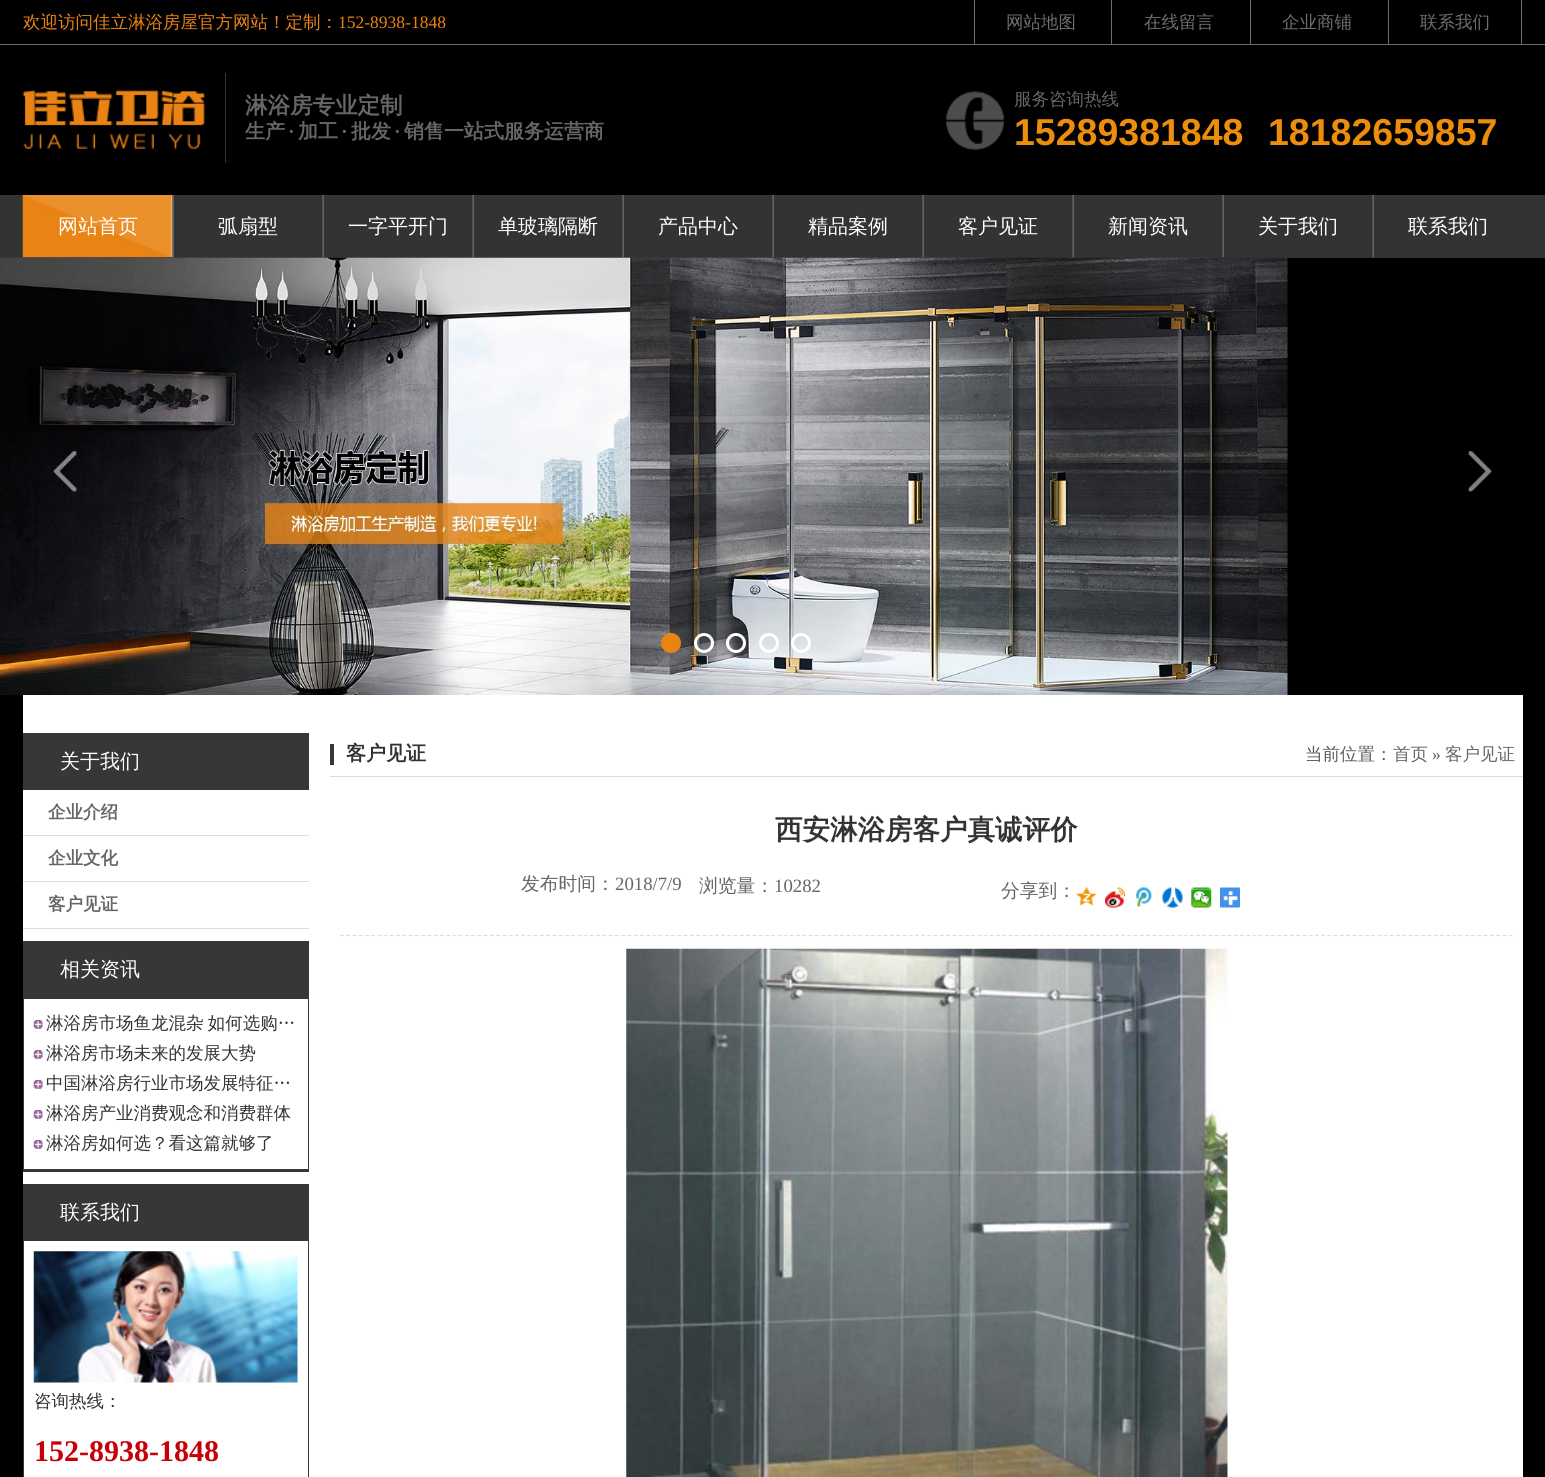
import math
import cairo


def write_spaced(ctx, x, y, s, letter, word):
	ctx.move_to(x, y)
	for ch in s:
		ctx.show_text(ch)
		ctx.rel_move_to(letter + word * (ch == ' '), 0)

def paste(ctx, path, x, y, w, h):
	ctx.save()
	ctx.set_source_surface(cairo.ImageSurface.create_from_png(path), x, y)
	ctx.rectangle(x, y, w, h)
	ctx.fill()
	ctx.restore()

def draw(ctx):
	ctx.set_source_rgb(0, 0, 0)
	ctx.paint()
	ctx.set_source_rgb(0.431, 0.431, 0.431)
	ctx.rectangle(0, 44, 1545, 1)
	ctx.fill()
	ctx.select_font_face('WenQuanYi Zen Hei Medium')
	ctx.set_font_size(17.5)
	ctx.set_source_rgb(0.914, 0.514, 0.078)
	ctx.move_to(23, 28)
	ctx.show_text('欢迎访问佳立淋浴房屋官方网站！定制：')
	ctx.select_font_face('Liberation Serif')
	ctx.move_to(338, 28)
	ctx.show_text('152-8938-1848')
	ctx.set_source_rgb(0.431, 0.431, 0.431)
	ctx.rectangle(974, 0, 1, 44)
	ctx.fill()
	ctx.select_font_face('WenQuanYi Zen Hei Medium')
	ctx.move_to(1006, 28)
	ctx.show_text('网站地图')
	ctx.rectangle(1111, 0, 1, 44)
	ctx.fill()
	ctx.move_to(1144, 28)
	ctx.show_text('在线留言')
	ctx.rectangle(1250, 0, 1, 44)
	ctx.fill()
	ctx.move_to(1282, 28)
	ctx.show_text('企业商铺')
	ctx.rectangle(1521, 0, 1, 44)
	ctx.fill()
	ctx.rectangle(1388, 0, 1, 44)
	ctx.fill()
	ctx.move_to(1420, 28)
	ctx.show_text('联系我们')
	paste(ctx, 'media/1.png', 22, 90, 184, 59)
	ctx.set_source_rgb(0.2, 0.2, 0.2)
	ctx.rectangle(225, 73, 1, 90)
	ctx.fill()
	ctx.select_font_face('WenQuanYi Zen Hei', cairo.FONT_SLANT_NORMAL, cairo.FONT_WEIGHT_BOLD)
	ctx.set_font_size(22.5)
	ctx.set_source_rgb(0.4, 0.4, 0.4)
	ctx.move_to(245, 113)
	ctx.show_text('淋浴房专业定制')
	ctx.set_font_size(20)
	ctx.move_to(245, 138)
	ctx.show_text('生产')
	ctx.select_font_face('Liberation Serif', cairo.FONT_SLANT_NORMAL, cairo.FONT_WEIGHT_BOLD)
	ctx.move_to(288, 138)
	ctx.show_text('·')
	ctx.select_font_face('WenQuanYi Zen Hei', cairo.FONT_SLANT_NORMAL, cairo.FONT_WEIGHT_BOLD)
	ctx.move_to(298, 138)
	ctx.show_text('加工')
	ctx.select_font_face('Liberation Serif', cairo.FONT_SLANT_NORMAL, cairo.FONT_WEIGHT_BOLD)
	ctx.move_to(341, 138)
	ctx.show_text('·')
	ctx.select_font_face('WenQuanYi Zen Hei', cairo.FONT_SLANT_NORMAL, cairo.FONT_WEIGHT_BOLD)
	ctx.move_to(351, 138)
	ctx.show_text('批发')
	ctx.select_font_face('Liberation Serif', cairo.FONT_SLANT_NORMAL, cairo.FONT_WEIGHT_BOLD)
	ctx.move_to(394, 138)
	ctx.show_text('·')
	ctx.select_font_face('WenQuanYi Zen Hei', cairo.FONT_SLANT_NORMAL, cairo.FONT_WEIGHT_BOLD)
	ctx.move_to(404, 138)
	ctx.show_text('销售一站式服务运营商')
	paste(ctx, 'media/2.png', 946, 91, 58, 59)
	ctx.select_font_face('WenQuanYi Zen Hei Medium')
	ctx.set_font_size(17.5)
	ctx.move_to(1014, 105)
	ctx.show_text('服务咨询热线')
	ctx.select_font_face('Liberation Sans', cairo.FONT_SLANT_NORMAL, cairo.FONT_WEIGHT_BOLD)
	ctx.set_font_size(37.5)
	ctx.set_source_rgb(0.925, 0.553, 0.047)
	ctx.move_to(1014, 145)
	ctx.show_text('15289381848')
	ctx.move_to(1268, 145)
	ctx.show_text('18182659857')
	ctx.set_source_rgb(0.2, 0.2, 0.2)
	ctx.rectangle(0, 195, 1545, 63)
	ctx.fill()
	paste(ctx, 'media/3.png', 22, 195, 151, 63)
	ctx.select_font_face('WenQuanYi Zen Hei Medium')
	ctx.set_font_size(20)
	ctx.set_source_rgb(1, 1, 1)
	ctx.move_to(58, 233)
	ctx.show_text('网站首页')
	paste(ctx, 'media/4.png', 172, 195, 2, 63)
	ctx.move_to(218, 233)
	ctx.show_text('弧扇型')
	paste(ctx, 'media/5.png', 322, 195, 2, 63)
	ctx.move_to(348, 233)
	ctx.show_text('一字平开门')
	paste(ctx, 'media/5.png', 472, 195, 2, 63)
	ctx.move_to(498, 233)
	ctx.show_text('单玻璃隔断')
	paste(ctx, 'media/5.png', 622, 195, 2, 63)
	ctx.move_to(658, 233)
	ctx.show_text('产品中心')
	paste(ctx, 'media/5.png', 772, 195, 2, 63)
	ctx.move_to(808, 233)
	ctx.show_text('精品案例')
	paste(ctx, 'media/5.png', 922, 195, 2, 63)
	ctx.move_to(958, 233)
	ctx.show_text('客户见证')
	paste(ctx, 'media/5.png', 1072, 195, 2, 63)
	ctx.move_to(1108, 233)
	ctx.show_text('新闻资讯')
	paste(ctx, 'media/5.png', 1222, 195, 2, 63)
	ctx.move_to(1258, 233)
	ctx.show_text('关于我们')
	paste(ctx, 'media/5.png', 1372, 195, 2, 63)
	ctx.move_to(1408, 233)
	ctx.show_text('联系我们')
	paste(ctx, 'media/6.png', 0, 257, 1288, 438)
	paste(ctx, 'media/7.png', 53, 451, 24, 41)
	paste(ctx, 'media/8.png', 1468, 451, 24, 41)
	ctx.set_source_rgb(0.914, 0.514, 0.078)
	ctx.arc(671, 643, 8.5, 0, 2 * math.pi)
	ctx.fill_preserve()
	ctx.set_line_width(3)
	ctx.stroke()
	ctx.arc(704, 643, 8.5, 0, 2 * math.pi)
	ctx.set_source_rgb(1, 1, 1)
	ctx.stroke()
	ctx.arc(736, 643, 8.5, 0, 2 * math.pi)
	ctx.stroke()
	ctx.arc(769, 643, 8.5, 0, 2 * math.pi)
	ctx.stroke()
	ctx.arc(801, 643, 8.5, 0, 2 * math.pi)
	ctx.stroke()
	ctx.rectangle(23, 695, 1500, 782)
	ctx.fill()
	ctx.set_source_rgb(0.216, 0.216, 0.216)
	ctx.rectangle(23, 733, 286, 57)
	ctx.fill()
	ctx.set_source_rgb(1, 1, 1)
	ctx.move_to(60, 768)
	ctx.show_text('关于我们')
	ctx.set_source_rgb(0.867, 0.867, 0.867)
	ctx.rectangle(23, 835, 286, 1)
	ctx.fill()
	ctx.select_font_face('WenQuanYi Zen Hei', cairo.FONT_SLANT_NORMAL, cairo.FONT_WEIGHT_BOLD)
	ctx.set_font_size(17.5)
	ctx.set_source_rgb(0.4, 0.4, 0.4)
	ctx.move_to(48, 818)
	ctx.show_text('企业介绍')
	ctx.set_source_rgb(0.867, 0.867, 0.867)
	ctx.rectangle(23, 881, 286, 1)
	ctx.fill()
	ctx.set_source_rgb(0.4, 0.4, 0.4)
	ctx.move_to(48, 864)
	ctx.show_text('企业文化')
	ctx.set_source_rgb(0.867, 0.867, 0.867)
	ctx.rectangle(23, 928, 286, 1)
	ctx.fill()
	ctx.set_source_rgb(0.4, 0.4, 0.4)
	ctx.move_to(48, 910)
	ctx.show_text('客户见证')
	ctx.set_source_rgb(0.216, 0.216, 0.216)
	ctx.rectangle(23, 941, 286, 58)
	ctx.fill()
	ctx.select_font_face('WenQuanYi Zen Hei Medium')
	ctx.set_font_size(20)
	ctx.set_source_rgb(1, 1, 1)
	ctx.move_to(60, 976)
	ctx.show_text('相关资讯')
	ctx.set_source_rgb(0.216, 0.216, 0.216)
	ctx.rectangle(308, 999, 1, 172)
	ctx.rectangle(23, 1169, 286, 3)
	ctx.rectangle(23, 999, 1, 172)
	ctx.fill()
	paste(ctx, 'media/9.png', 33, 1020, 10, 9)
	ctx.set_font_size(17.5)
	ctx.set_source_rgb(0.2, 0.2, 0.2)
	write_spaced(ctx, 46, 1029, '淋浴房市场鱼龙混杂 如何选购…', 0, -1)
	paste(ctx, 'media/9.png', 33, 1050, 10, 9)
	ctx.move_to(46, 1059)
	ctx.show_text('淋浴房市场未来的发展大势')
	paste(ctx, 'media/9.png', 33, 1080, 10, 9)
	ctx.move_to(46, 1089)
	ctx.show_text('中国淋浴房行业市场发展特征…')
	paste(ctx, 'media/9.png', 33, 1110, 10, 9)
	ctx.move_to(46, 1119)
	ctx.show_text('淋浴房产业消费观念和消费群体')
	paste(ctx, 'media/9.png', 33, 1140, 10, 9)
	ctx.move_to(46, 1149)
	ctx.show_text('淋浴房如何选？看这篇就够了')
	ctx.set_source_rgb(0.216, 0.216, 0.216)
	ctx.rectangle(23, 1184, 286, 57)
	ctx.fill()
	ctx.set_font_size(20)
	ctx.set_source_rgb(1, 1, 1)
	ctx.move_to(60, 1219)
	ctx.show_text('联系我们')
	ctx.set_source_rgb(0.216, 0.216, 0.216)
	ctx.rectangle(308, 1241, 1, 236)
	ctx.fill()
	ctx.rectangle(23, 1241, 1, 236)
	ctx.fill()
	paste(ctx, 'media/10.png', 33, 1251, 265, 132)
	ctx.set_font_size(17.5)
	ctx.set_source_rgb(0.2, 0.2, 0.2)
	ctx.move_to(34, 1407)
	ctx.show_text('咨询热线：')
	ctx.select_font_face('Liberation Serif', cairo.FONT_SLANT_NORMAL, cairo.FONT_WEIGHT_BOLD)
	ctx.set_font_size(30)
	ctx.set_source_rgb(0.78, 0, 0.035)
	ctx.move_to(34, 1461)
	ctx.show_text('152-8938-1848')
	ctx.set_source_rgb(0.859, 0.859, 0.859)
	ctx.rectangle(330, 776, 1193, 1)
	ctx.fill()
	ctx.set_source_rgb(0.216, 0.216, 0.216)
	ctx.rectangle(330, 744, 4, 21)
	ctx.fill()
	ctx.select_font_face('WenQuanYi Zen Hei', cairo.FONT_SLANT_NORMAL, cairo.FONT_WEIGHT_BOLD)
	ctx.set_font_size(20)
	ctx.set_source_rgb(0.2, 0.2, 0.2)
	ctx.move_to(346, 760)
	ctx.show_text('客户见证')
	ctx.select_font_face('WenQuanYi Zen Hei Medium')
	ctx.set_font_size(17.5)
	ctx.set_source_rgb(0.353, 0.353, 0.353)
	ctx.move_to(1305, 760)
	ctx.show_text('当前位置：')
	ctx.set_source_rgb(0.4, 0.4, 0.4)
	ctx.move_to(1393, 760)
	ctx.show_text('首页')
	ctx.select_font_face('Liberation Serif')
	ctx.set_source_rgb(0.353, 0.353, 0.353)
	ctx.move_to(1432, 760)
	ctx.show_text('»')
	ctx.select_font_face('WenQuanYi Zen Hei Medium')
	ctx.set_source_rgb(0.4, 0.4, 0.4)
	ctx.move_to(1445, 760)
	ctx.show_text('客户见证')
	ctx.new_path()
	ctx.move_to(340, 935.5)
	ctx.line_to(1512.5, 935.5)
	ctx.set_source_rgb(0.867, 0.867, 0.867)
	ctx.set_line_width(1.2)
	ctx.set_dash([3.75, 2.5])
	ctx.stroke()
	ctx.select_font_face('WenQuanYi Zen Hei', cairo.FONT_SLANT_NORMAL, cairo.FONT_WEIGHT_BOLD)
	ctx.set_font_size(27.5)
	ctx.set_source_rgb(0.2, 0.2, 0.2)
	ctx.move_to(775, 839)
	ctx.show_text('西安淋浴房客户真诚评价')
	ctx.select_font_face('WenQuanYi Zen Hei Medium')
	ctx.set_font_size(18.75)
	ctx.set_source_rgb(0.4, 0.4, 0.4)
	ctx.move_to(521, 890)
	ctx.show_text('发布时间：')
	ctx.select_font_face('Liberation Serif')
	ctx.move_to(615, 890)
	ctx.show_text('2018/7/9')
	ctx.select_font_face('WenQuanYi Zen Hei Medium')
	ctx.move_to(699, 892)
	ctx.show_text('浏览量：')
	ctx.select_font_face('Liberation Serif')
	ctx.move_to(774, 892)
	ctx.show_text('10282')
	ctx.select_font_face('WenQuanYi Zen Hei Medium')
	ctx.move_to(1001, 897)
	ctx.show_text('分享到：')
	paste(ctx, 'media/11.png', 1076, 887, 21, 19)
	paste(ctx, 'media/12.png', 1105, 887, 20, 21)
	paste(ctx, 'media/13.png', 1136, 887, 16, 20)
	paste(ctx, 'media/14.png', 1162, 887, 21, 21)
	paste(ctx, 'media/15.png', 1191, 887, 21, 21)
	paste(ctx, 'media/16.png', 1220, 887, 20, 21)
	paste(ctx, 'media/17.png', 626, 948, 602, 529)


surface = cairo.ImageSurface(cairo.FORMAT_RGB24, 1545, 1477)
ctx = cairo.Context(surface)
options = cairo.FontOptions()
options.set_hint_metrics(cairo.HINT_METRICS_OFF)
options.set_hint_style(cairo.HINT_STYLE_NONE)
ctx.set_font_options(options)
ctx.set_miter_limit(4)
draw(ctx)
surface.write_to_png('image.png')
